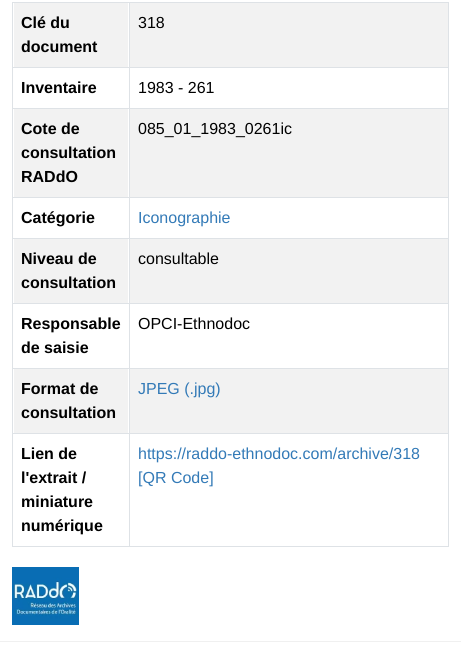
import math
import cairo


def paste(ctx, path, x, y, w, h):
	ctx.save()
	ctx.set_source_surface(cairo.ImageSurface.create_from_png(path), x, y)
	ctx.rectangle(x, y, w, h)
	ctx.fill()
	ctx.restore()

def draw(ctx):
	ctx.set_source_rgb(1, 1, 1)
	ctx.paint()
	ctx.set_source_rgb(0.871, 0.886, 0.902)
	ctx.rectangle(12, 2, 437, 1)
	ctx.fill()
	ctx.set_source_rgb(0.949, 0.949, 0.949)
	ctx.rectangle(14, 3, 114, 64)
	ctx.fill()
	ctx.select_font_face('Liberation Sans', cairo.FONT_SLANT_NORMAL, cairo.FONT_WEIGHT_BOLD)
	ctx.set_font_size(16)
	ctx.set_source_rgb(0, 0, 0)
	ctx.move_to(21, 28)
	ctx.show_text('Clé du')
	ctx.move_to(21, 52)
	ctx.show_text('document')
	ctx.set_source_rgb(0.949, 0.949, 0.949)
	ctx.rectangle(130, 3, 318, 64)
	ctx.fill()
	ctx.select_font_face('Liberation Sans')
	ctx.set_source_rgb(0, 0, 0)
	ctx.move_to(138, 28)
	ctx.show_text('318')
	ctx.set_source_rgb(0.871, 0.886, 0.902)
	ctx.rectangle(12, 67, 437, 1)
	ctx.fill()
	ctx.select_font_face('Liberation Sans', cairo.FONT_SLANT_NORMAL, cairo.FONT_WEIGHT_BOLD)
	ctx.set_source_rgb(0, 0, 0)
	ctx.move_to(21, 93)
	ctx.show_text('Inventaire')
	ctx.select_font_face('Liberation Sans')
	ctx.move_to(138, 93)
	ctx.show_text('1983 - 261')
	ctx.set_source_rgb(0.871, 0.886, 0.902)
	ctx.rectangle(12, 108, 437, 1)
	ctx.fill()
	ctx.set_source_rgb(0.949, 0.949, 0.949)
	ctx.rectangle(14, 109, 114, 88)
	ctx.fill()
	ctx.select_font_face('Liberation Sans', cairo.FONT_SLANT_NORMAL, cairo.FONT_WEIGHT_BOLD)
	ctx.set_source_rgb(0, 0, 0)
	for x, y, s in [
		(21, 134, 'Cote de'),
		(21, 158, 'consultation'),
		(21, 182, 'RADdO'),
	]:
		ctx.move_to(x, y)
		ctx.show_text(s)
	ctx.set_source_rgb(0.949, 0.949, 0.949)
	ctx.rectangle(130, 109, 318, 88)
	ctx.fill()
	ctx.select_font_face('Liberation Sans')
	ctx.set_source_rgb(0, 0, 0)
	ctx.move_to(138, 134)
	ctx.show_text('085_01_1983_0261ic')
	ctx.set_source_rgb(0.871, 0.886, 0.902)
	ctx.rectangle(12, 197, 437, 1)
	ctx.fill()
	ctx.select_font_face('Liberation Sans', cairo.FONT_SLANT_NORMAL, cairo.FONT_WEIGHT_BOLD)
	ctx.set_source_rgb(0, 0, 0)
	ctx.move_to(21, 223)
	ctx.show_text('Catégorie')
	ctx.select_font_face('Liberation Sans')
	ctx.set_source_rgb(0.2, 0.478, 0.718)
	ctx.move_to(138, 223)
	ctx.show_text('Iconographie')
	ctx.set_source_rgb(0.871, 0.886, 0.902)
	ctx.rectangle(12, 238, 437, 1)
	ctx.fill()
	ctx.set_source_rgb(0.949, 0.949, 0.949)
	ctx.rectangle(14, 239, 114, 64)
	ctx.fill()
	ctx.select_font_face('Liberation Sans', cairo.FONT_SLANT_NORMAL, cairo.FONT_WEIGHT_BOLD)
	ctx.set_source_rgb(0, 0, 0)
	ctx.move_to(21, 264)
	ctx.show_text('Niveau de')
	ctx.move_to(21, 288)
	ctx.show_text('consultation')
	ctx.set_source_rgb(0.949, 0.949, 0.949)
	ctx.rectangle(130, 239, 318, 64)
	ctx.fill()
	ctx.select_font_face('Liberation Sans')
	ctx.set_source_rgb(0, 0, 0)
	ctx.move_to(138, 264)
	ctx.show_text('consultable')
	ctx.set_source_rgb(0.871, 0.886, 0.902)
	ctx.rectangle(12, 303, 437, 1)
	ctx.fill()
	ctx.select_font_face('Liberation Sans', cairo.FONT_SLANT_NORMAL, cairo.FONT_WEIGHT_BOLD)
	ctx.set_source_rgb(0, 0, 0)
	ctx.move_to(21, 329)
	ctx.show_text('Responsable')
	ctx.move_to(21, 353)
	ctx.show_text('de saisie')
	ctx.select_font_face('Liberation Sans')
	ctx.move_to(138, 329)
	ctx.show_text('OPCI-Ethnodoc')
	ctx.set_source_rgb(0.871, 0.886, 0.902)
	ctx.rectangle(12, 368, 437, 1)
	ctx.fill()
	ctx.set_source_rgb(0.949, 0.949, 0.949)
	ctx.rectangle(14, 369, 114, 64)
	ctx.fill()
	ctx.select_font_face('Liberation Sans', cairo.FONT_SLANT_NORMAL, cairo.FONT_WEIGHT_BOLD)
	ctx.set_source_rgb(0, 0, 0)
	ctx.move_to(21, 394)
	ctx.show_text('Format de')
	ctx.move_to(21, 418)
	ctx.show_text('consultation')
	ctx.set_source_rgb(0.949, 0.949, 0.949)
	ctx.rectangle(130, 369, 318, 64)
	ctx.fill()
	ctx.select_font_face('Liberation Sans')
	ctx.set_source_rgb(0.2, 0.478, 0.718)
	ctx.move_to(138, 394)
	ctx.show_text('JPEG (.jpg)')
	ctx.set_source_rgb(0.871, 0.886, 0.902)
	ctx.rectangle(12, 433, 437, 1)
	ctx.rectangle(12, 546, 437, 1)
	ctx.rectangle(12, 2, 1, 545)
	ctx.fill()
	ctx.select_font_face('Liberation Sans', cairo.FONT_SLANT_NORMAL, cairo.FONT_WEIGHT_BOLD)
	ctx.set_source_rgb(0, 0, 0)
	for x, y, s in [
		(21, 459, 'Lien de'),
		(21, 483, 'l\'extrait /'),
		(21, 507, 'miniature'),
		(21, 531, 'numérique'),
	]:
		ctx.move_to(x, y)
		ctx.show_text(s)
	ctx.set_source_rgb(0.871, 0.886, 0.902)
	ctx.rectangle(448, 2, 1, 545)
	ctx.fill()
	ctx.rectangle(129, 2, 1, 545)
	ctx.fill()
	ctx.select_font_face('Liberation Sans')
	ctx.set_source_rgb(0.2, 0.478, 0.718)
	ctx.move_to(138, 459)
	ctx.show_text('https://raddo-ethnodoc.com/archive/318')
	ctx.move_to(138, 483)
	ctx.show_text('[QR Code]')
	paste(ctx, 'media/1.png', 12, 567, 67, 58)
	ctx.set_source_rgb(0.941, 0.941, 0.941)
	ctx.rectangle(0, 641, 461, 1)
	ctx.fill()


surface = cairo.ImageSurface(cairo.FORMAT_RGB24, 461, 647)
ctx = cairo.Context(surface)
options = cairo.FontOptions()
options.set_hint_metrics(cairo.HINT_METRICS_OFF)
options.set_hint_style(cairo.HINT_STYLE_NONE)
ctx.set_font_options(options)
ctx.set_miter_limit(4)
draw(ctx)
surface.write_to_png('image.png')
